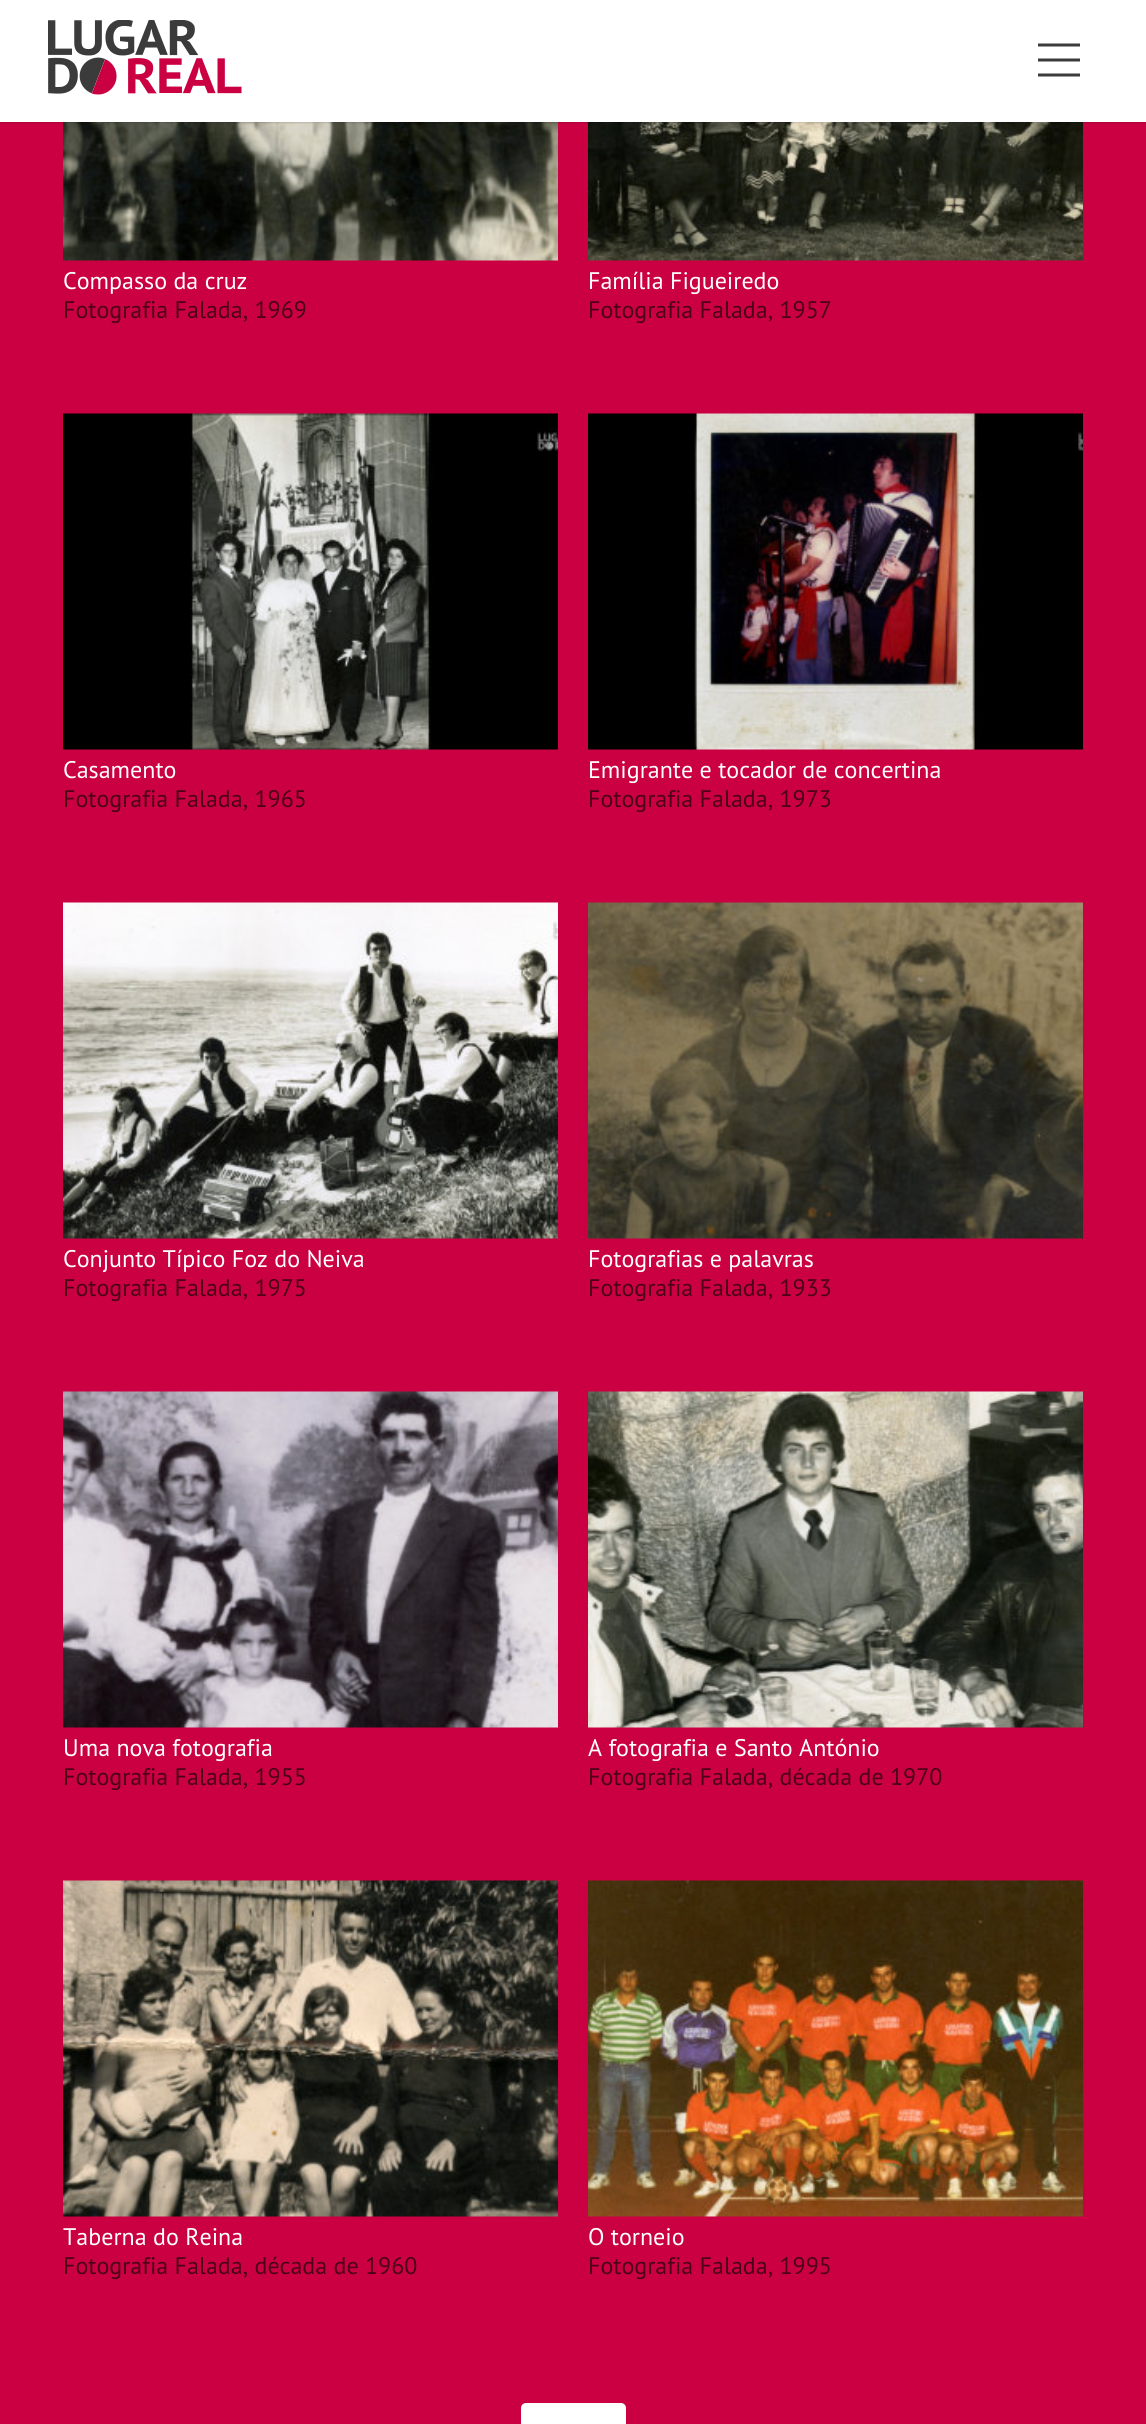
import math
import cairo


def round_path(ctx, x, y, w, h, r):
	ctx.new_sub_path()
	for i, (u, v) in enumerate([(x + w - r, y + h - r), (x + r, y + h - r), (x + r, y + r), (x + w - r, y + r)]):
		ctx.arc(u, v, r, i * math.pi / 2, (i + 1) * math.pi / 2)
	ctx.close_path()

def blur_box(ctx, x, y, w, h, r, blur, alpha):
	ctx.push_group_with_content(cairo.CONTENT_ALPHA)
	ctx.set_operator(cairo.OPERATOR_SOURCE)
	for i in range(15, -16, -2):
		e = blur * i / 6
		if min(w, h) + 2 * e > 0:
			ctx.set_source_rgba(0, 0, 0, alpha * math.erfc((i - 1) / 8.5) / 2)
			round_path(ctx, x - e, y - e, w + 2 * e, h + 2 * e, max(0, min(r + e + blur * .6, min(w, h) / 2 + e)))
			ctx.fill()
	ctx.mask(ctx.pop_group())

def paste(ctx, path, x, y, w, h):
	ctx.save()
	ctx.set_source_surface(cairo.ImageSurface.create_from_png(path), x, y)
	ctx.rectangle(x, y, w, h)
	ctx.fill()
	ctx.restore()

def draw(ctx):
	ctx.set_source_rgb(0.796, 0, 0.263)
	ctx.paint()
	paste(ctx, 'media/2.png', 63, 122, 495, 139)
	paste(ctx, 'media/3.png', 588, 122, 495, 139)
	ctx.set_source_rgb(0, 0, 0)
	blur_box(ctx, 0, 0, 1146, 122, 0, 1.5, 0.3)
	ctx.set_source_rgb(1, 1, 1)
	ctx.rectangle(0, 0, 1146, 122)
	ctx.fill()
	paste(ctx, 'media/1.png', 48, 20, 194, 75)
	ctx.new_path()
	ctx.move_to(1038, 45)
	ctx.line_to(1080, 45)
	ctx.move_to(1038, 60)
	ctx.line_to(1080, 60)
	ctx.move_to(1038, 75)
	ctx.line_to(1080, 75)
	ctx.set_source_rgb(0.231, 0.231, 0.231)
	ctx.set_line_width(3)
	ctx.stroke()
	ctx.select_font_face('PT Sans')
	ctx.set_font_size(24)
	ctx.set_source_rgb(1, 1, 1)
	ctx.move_to(63, 289)
	ctx.show_text('Compasso da cruz')
	ctx.set_source_rgb(0.302, 0, 0.102)
	ctx.move_to(63, 318)
	ctx.show_text('Fotografia Falada, 1969')
	ctx.set_source_rgb(1, 1, 1)
	ctx.move_to(588, 289)
	ctx.show_text('Família Figueiredo')
	ctx.set_source_rgb(0.302, 0, 0.102)
	ctx.move_to(588, 318)
	ctx.show_text('Fotografia Falada, 1957')
	paste(ctx, 'media/4.png', 63, 413, 495, 337)
	ctx.set_source_rgb(1, 1, 1)
	ctx.move_to(63, 778)
	ctx.show_text('Casamento')
	ctx.set_source_rgb(0.302, 0, 0.102)
	ctx.move_to(63, 807)
	ctx.show_text('Fotografia Falada, 1965')
	paste(ctx, 'media/5.png', 588, 413, 495, 337)
	ctx.set_source_rgb(1, 1, 1)
	ctx.move_to(588, 778)
	ctx.show_text('Emigrante e tocador de concertina')
	ctx.set_source_rgb(0.302, 0, 0.102)
	ctx.move_to(588, 807)
	ctx.show_text('Fotografia Falada, 1973')
	paste(ctx, 'media/6.png', 63, 902, 495, 337)
	ctx.set_source_rgb(1, 1, 1)
	ctx.move_to(63, 1267)
	ctx.show_text('Conjunto Típico Foz do Neiva')
	ctx.set_source_rgb(0.302, 0, 0.102)
	ctx.move_to(63, 1296)
	ctx.show_text('Fotografia Falada, 1975')
	paste(ctx, 'media/7.png', 588, 902, 495, 337)
	ctx.set_source_rgb(1, 1, 1)
	ctx.move_to(588, 1267)
	ctx.show_text('Fotografias e palavras')
	ctx.set_source_rgb(0.302, 0, 0.102)
	ctx.move_to(588, 1296)
	ctx.show_text('Fotografia Falada, 1933')
	paste(ctx, 'media/8.png', 63, 1391, 495, 337)
	ctx.set_source_rgb(1, 1, 1)
	ctx.move_to(63, 1756)
	ctx.show_text('Uma nova fotografia')
	ctx.set_source_rgb(0.302, 0, 0.102)
	ctx.move_to(63, 1785)
	ctx.show_text('Fotografia Falada, 1955')
	paste(ctx, 'media/9.png', 588, 1391, 495, 337)
	ctx.set_source_rgb(1, 1, 1)
	ctx.move_to(588, 1756)
	ctx.show_text('A fotografia e Santo António')
	ctx.set_source_rgb(0.302, 0, 0.102)
	ctx.move_to(588, 1785)
	ctx.show_text('Fotografia Falada, década de 1970')
	paste(ctx, 'media/10.png', 63, 1880, 495, 337)
	ctx.set_source_rgb(1, 1, 1)
	ctx.move_to(63, 2245)
	ctx.show_text('Taberna do Reina')
	ctx.set_source_rgb(0.302, 0, 0.102)
	ctx.move_to(63, 2274)
	ctx.show_text('Fotografia Falada, década de 1960')
	paste(ctx, 'media/11.png', 588, 1880, 495, 337)
	ctx.set_source_rgb(1, 1, 1)
	ctx.move_to(588, 2245)
	ctx.show_text('O torneio')
	ctx.set_source_rgb(0.302, 0, 0.102)
	ctx.move_to(588, 2274)
	ctx.show_text('Fotografia Falada, 1995')
	ctx.set_source_rgb(1, 1, 1)
	round_path(ctx, 521, 2403, 105, 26, 5)
	ctx.fill()


surface = cairo.ImageSurface(cairo.FORMAT_RGB24, 1146, 2424)
ctx = cairo.Context(surface)
options = cairo.FontOptions()
options.set_hint_metrics(cairo.HINT_METRICS_OFF)
options.set_hint_style(cairo.HINT_STYLE_NONE)
ctx.set_font_options(options)
ctx.set_miter_limit(4)
draw(ctx)
surface.write_to_png('image.png')
